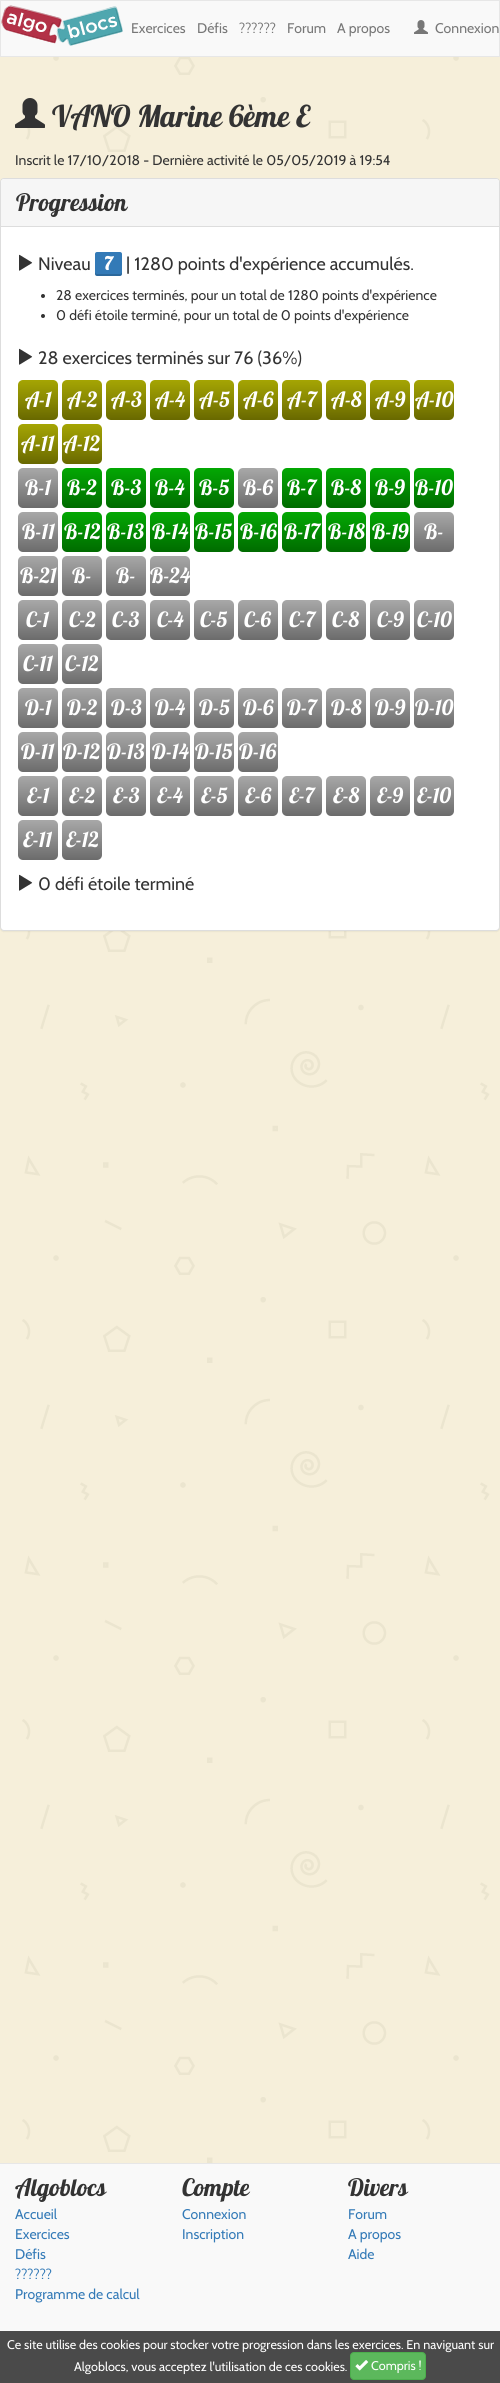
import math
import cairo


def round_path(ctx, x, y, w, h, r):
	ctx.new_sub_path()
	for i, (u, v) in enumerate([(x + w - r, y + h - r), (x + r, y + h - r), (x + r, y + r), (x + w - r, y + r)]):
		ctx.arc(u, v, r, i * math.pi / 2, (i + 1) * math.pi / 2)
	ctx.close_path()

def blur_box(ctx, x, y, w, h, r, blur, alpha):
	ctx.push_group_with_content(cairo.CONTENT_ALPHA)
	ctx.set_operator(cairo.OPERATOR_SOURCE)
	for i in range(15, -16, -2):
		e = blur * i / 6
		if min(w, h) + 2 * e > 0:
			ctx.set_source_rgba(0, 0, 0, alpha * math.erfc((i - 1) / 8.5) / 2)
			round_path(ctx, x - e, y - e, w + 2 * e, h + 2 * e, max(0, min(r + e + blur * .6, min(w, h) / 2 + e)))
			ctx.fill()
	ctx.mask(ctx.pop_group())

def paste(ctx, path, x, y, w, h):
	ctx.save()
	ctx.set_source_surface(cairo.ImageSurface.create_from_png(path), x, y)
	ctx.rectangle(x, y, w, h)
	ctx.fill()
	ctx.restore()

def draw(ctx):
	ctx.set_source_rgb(1, 1, 1)
	ctx.paint()
	paste(ctx, 'media/1.png', 0, 57, 500, 2106)
	ctx.set_source_rgb(0.973, 0.973, 0.973)
	ctx.rectangle(0.5, 0.5, 499, 56)
	ctx.fill_preserve()
	ctx.set_source_rgb(0.906, 0.906, 0.906)
	ctx.set_line_width(1)
	ctx.stroke()
	paste(ctx, 'media/2.png', 1, 5, 122, 41)
	ctx.select_font_face('Cabin')
	ctx.set_font_size(14)
	ctx.set_source_rgb(0.467, 0.467, 0.467)
	for x, y, s in [
		(131, 33, 'Exercices'),
		(197, 33, 'Défis'),
		(239, 33, '??????'),
		(287, 33, 'Forum'),
		(337, 33, 'A propos'),
	]:
		ctx.move_to(x, y)
		ctx.show_text(s)
	paste(ctx, 'media/3.png', 414, 20, 14, 14)
	ctx.move_to(435, 33)
	ctx.show_text('Connexion')
	paste(ctx, 'media/4.png', 15, 98, 30, 30)
	ctx.select_font_face('Lobster')
	ctx.set_font_size(30)
	ctx.set_source_rgb(0.2, 0.2, 0.2)
	ctx.move_to(52, 127)
	ctx.show_text('VANO Marine 6ème E')
	ctx.select_font_face('Cabin')
	ctx.set_font_size(14)
	ctx.move_to(15, 165)
	ctx.show_text('Inscrit le 17/10/2018 - Dernière activité le 05/05/2019 à 19:54')
	ctx.set_source_rgb(0, 0, 0)
	blur_box(ctx, 0, 179, 500, 753, 4, 0.5, 0.05)
	ctx.set_source_rgb(1, 1, 1)
	round_path(ctx, 0.5, 178.5, 499, 752, 3.5)
	ctx.fill_preserve()
	ctx.set_source_rgb(0.867, 0.867, 0.867)
	ctx.stroke()
	ctx.set_source_rgb(0.961, 0.961, 0.961)
	ctx.new_path()
	ctx.move_to(4, 179)
	ctx.line_to(496, 179)
	ctx.curve_to(497.5, 179, 499, 180.5, 499, 182)
	ctx.line_to(499, 227)
	ctx.line_to(1, 227)
	ctx.line_to(1, 182)
	ctx.curve_to(1, 180.5, 2.5, 179, 4, 179)
	ctx.close_path()
	ctx.fill()
	ctx.set_source_rgb(0.867, 0.867, 0.867)
	ctx.rectangle(1, 226, 498, 1)
	ctx.fill()
	ctx.select_font_face('Lobster')
	ctx.set_font_size(24)
	ctx.set_source_rgb(0.2, 0.2, 0.2)
	ctx.move_to(16, 211)
	ctx.show_text('Progression')
	paste(ctx, 'media/5.png', 19, 254, 14, 17)
	ctx.select_font_face('Cabin')
	ctx.set_font_size(18)
	ctx.move_to(38, 270)
	ctx.show_text('Niveau')
	ctx.set_source_rgb(0.2, 0.478, 0.718)
	round_path(ctx, 95, 252, 27, 24, 2)
	ctx.fill()
	ctx.set_source_rgba(0, 0, 0, 0.15)
	ctx.new_path()
	ctx.move_to(95, 272)
	ctx.curve_to(95, 276.5, 96, 276, 101, 276)
	ctx.line_to(116, 276)
	ctx.curve_to(121, 276, 122, 276.5, 122, 272)
	ctx.curve_to(122, 273, 121, 274, 120, 274)
	ctx.line_to(97, 274)
	ctx.curve_to(96, 274, 95, 273, 95, 272)
	ctx.close_path()
	ctx.fill()
	ctx.select_font_face('Lobster', cairo.FONT_SLANT_NORMAL, cairo.FONT_WEIGHT_BOLD)
	ctx.set_source_rgb(1, 1, 1)
	ctx.move_to(104, 270)
	ctx.show_text('7')
	ctx.select_font_face('Cabin')
	ctx.set_source_rgb(0.2, 0.2, 0.2)
	ctx.move_to(126, 270)
	ctx.show_text('| 1280 points d\'expérience accumulés.')
	ctx.new_path()
	ctx.arc(43, 296, 2, 0, 2 * math.pi)
	ctx.fill()
	ctx.set_font_size(14)
	ctx.move_to(56, 300)
	ctx.show_text('28 exercices terminés, pour un total de 1280 points d\'expérience')
	ctx.new_path()
	ctx.arc(43, 316, 2, 0, 2 * math.pi)
	ctx.fill()
	ctx.move_to(56, 320)
	ctx.show_text('0 défi étoile terminé, pour un total de 0 points d\'expérience')
	paste(ctx, 'media/5.png', 19, 348, 14, 17)
	ctx.set_font_size(18)
	ctx.move_to(38, 364)
	ctx.show_text('28 exercices terminés sur 76 (36%)')
	gradient = cairo.LinearGradient(38, 380, 38, 420)
	gradient.add_color_stop_rgba(0, 0.647, 0.647, 0.012, 1)
	gradient.add_color_stop_rgba(0.44, 0.549, 0.549, 0.008, 1)
	gradient.add_color_stop_rgba(1, 0.408, 0.408, 0, 1)
	ctx.set_source(gradient)
	round_path(ctx, 18, 380, 40, 40, 5)
	ctx.fill()
	ctx.select_font_face('Lobster')
	ctx.set_font_size(21)
	ctx.set_source_rgb(1, 1, 1)
	ctx.move_to(25, 407)
	ctx.show_text('A-1')
	gradient = cairo.LinearGradient(82, 380, 82, 420)
	gradient.add_color_stop_rgba(0, 0.647, 0.647, 0.012, 1)
	gradient.add_color_stop_rgba(0.44, 0.549, 0.549, 0.008, 1)
	gradient.add_color_stop_rgba(1, 0.408, 0.408, 0, 1)
	ctx.set_source(gradient)
	round_path(ctx, 62, 380, 40, 40, 5)
	ctx.fill()
	ctx.set_source_rgb(1, 1, 1)
	ctx.move_to(67, 407)
	ctx.show_text('A-2')
	gradient = cairo.LinearGradient(126, 380, 126, 420)
	gradient.add_color_stop_rgba(0, 0.647, 0.647, 0.012, 1)
	gradient.add_color_stop_rgba(0.44, 0.549, 0.549, 0.008, 1)
	gradient.add_color_stop_rgba(1, 0.408, 0.408, 0, 1)
	ctx.set_source(gradient)
	round_path(ctx, 106, 380, 40, 40, 5)
	ctx.fill()
	ctx.set_source_rgb(1, 1, 1)
	ctx.move_to(111, 407)
	ctx.show_text('A-3')
	gradient = cairo.LinearGradient(170, 380, 170, 420)
	gradient.add_color_stop_rgba(0, 0.647, 0.647, 0.012, 1)
	gradient.add_color_stop_rgba(0.44, 0.549, 0.549, 0.008, 1)
	gradient.add_color_stop_rgba(1, 0.408, 0.408, 0, 1)
	ctx.set_source(gradient)
	round_path(ctx, 150, 380, 40, 40, 5)
	ctx.fill()
	ctx.set_source_rgb(1, 1, 1)
	ctx.move_to(155, 407)
	ctx.show_text('A-4')
	gradient = cairo.LinearGradient(214, 380, 214, 420)
	gradient.add_color_stop_rgba(0, 0.647, 0.647, 0.012, 1)
	gradient.add_color_stop_rgba(0.44, 0.549, 0.549, 0.008, 1)
	gradient.add_color_stop_rgba(1, 0.408, 0.408, 0, 1)
	ctx.set_source(gradient)
	round_path(ctx, 194, 380, 40, 40, 5)
	ctx.fill()
	ctx.set_source_rgb(1, 1, 1)
	ctx.move_to(199, 407)
	ctx.show_text('A-5')
	gradient = cairo.LinearGradient(258, 380, 258, 420)
	gradient.add_color_stop_rgba(0, 0.647, 0.647, 0.012, 1)
	gradient.add_color_stop_rgba(0.44, 0.549, 0.549, 0.008, 1)
	gradient.add_color_stop_rgba(1, 0.408, 0.408, 0, 1)
	ctx.set_source(gradient)
	round_path(ctx, 238, 380, 40, 40, 5)
	ctx.fill()
	ctx.set_source_rgb(1, 1, 1)
	ctx.move_to(243, 407)
	ctx.show_text('A-6')
	gradient = cairo.LinearGradient(302, 380, 302, 420)
	gradient.add_color_stop_rgba(0, 0.647, 0.647, 0.012, 1)
	gradient.add_color_stop_rgba(0.44, 0.549, 0.549, 0.008, 1)
	gradient.add_color_stop_rgba(1, 0.408, 0.408, 0, 1)
	ctx.set_source(gradient)
	round_path(ctx, 282, 380, 40, 40, 5)
	ctx.fill()
	ctx.set_source_rgb(1, 1, 1)
	ctx.move_to(287, 407)
	ctx.show_text('A-7')
	gradient = cairo.LinearGradient(346, 380, 346, 420)
	gradient.add_color_stop_rgba(0, 0.647, 0.647, 0.012, 1)
	gradient.add_color_stop_rgba(0.44, 0.549, 0.549, 0.008, 1)
	gradient.add_color_stop_rgba(1, 0.408, 0.408, 0, 1)
	ctx.set_source(gradient)
	round_path(ctx, 326, 380, 40, 40, 5)
	ctx.fill()
	ctx.set_source_rgb(1, 1, 1)
	ctx.move_to(331, 407)
	ctx.show_text('A-8')
	gradient = cairo.LinearGradient(390, 380, 390, 420)
	gradient.add_color_stop_rgba(0, 0.647, 0.647, 0.012, 1)
	gradient.add_color_stop_rgba(0.44, 0.549, 0.549, 0.008, 1)
	gradient.add_color_stop_rgba(1, 0.408, 0.408, 0, 1)
	ctx.set_source(gradient)
	round_path(ctx, 370, 380, 40, 40, 5)
	ctx.fill()
	ctx.set_source_rgb(1, 1, 1)
	ctx.move_to(375, 407)
	ctx.show_text('A-9')
	gradient = cairo.LinearGradient(434, 380, 434, 420)
	gradient.add_color_stop_rgba(0, 0.647, 0.647, 0.012, 1)
	gradient.add_color_stop_rgba(0.44, 0.549, 0.549, 0.008, 1)
	gradient.add_color_stop_rgba(1, 0.408, 0.408, 0, 1)
	ctx.set_source(gradient)
	round_path(ctx, 414, 380, 40, 40, 5)
	ctx.fill()
	ctx.set_source_rgb(1, 1, 1)
	ctx.move_to(415, 407)
	ctx.show_text('A-10')
	gradient = cairo.LinearGradient(38, 424, 38, 464)
	gradient.add_color_stop_rgba(0, 0.647, 0.647, 0.012, 1)
	gradient.add_color_stop_rgba(0.44, 0.549, 0.549, 0.008, 1)
	gradient.add_color_stop_rgba(1, 0.408, 0.408, 0, 1)
	ctx.set_source(gradient)
	round_path(ctx, 18, 424, 40, 40, 5)
	ctx.fill()
	ctx.set_source_rgb(1, 1, 1)
	ctx.move_to(21, 451)
	ctx.show_text('A-11')
	gradient = cairo.LinearGradient(82, 424, 82, 464)
	gradient.add_color_stop_rgba(0, 0.647, 0.647, 0.012, 1)
	gradient.add_color_stop_rgba(0.44, 0.549, 0.549, 0.008, 1)
	gradient.add_color_stop_rgba(1, 0.408, 0.408, 0, 1)
	ctx.set_source(gradient)
	round_path(ctx, 62, 424, 40, 40, 5)
	ctx.fill()
	ctx.set_source_rgb(1, 1, 1)
	ctx.move_to(63, 451)
	ctx.show_text('A-12')
	gradient = cairo.LinearGradient(38, 468, 38, 508)
	gradient.add_color_stop_rgba(0, 0.659, 0.659, 0.659, 1)
	gradient.add_color_stop_rgba(0.44, 0.557, 0.557, 0.557, 1)
	gradient.add_color_stop_rgba(1, 0.42, 0.42, 0.42, 1)
	ctx.set_source(gradient)
	round_path(ctx, 18, 468, 40, 40, 5)
	ctx.fill()
	ctx.set_source_rgb(1, 1, 1)
	ctx.move_to(25, 495)
	ctx.show_text('B-1')
	gradient = cairo.LinearGradient(82, 468, 82, 508)
	gradient.add_color_stop_rgba(0, 0.012, 0.659, 0.012, 1)
	gradient.add_color_stop_rgba(0.44, 0.008, 0.557, 0.008, 1)
	gradient.add_color_stop_rgba(1, 0, 0.42, 0, 1)
	ctx.set_source(gradient)
	round_path(ctx, 62, 468, 40, 40, 5)
	ctx.fill()
	ctx.set_source_rgb(1, 1, 1)
	ctx.move_to(67, 495)
	ctx.show_text('B-2')
	gradient = cairo.LinearGradient(126, 468, 126, 508)
	gradient.add_color_stop_rgba(0, 0.012, 0.659, 0.012, 1)
	gradient.add_color_stop_rgba(0.44, 0.008, 0.557, 0.008, 1)
	gradient.add_color_stop_rgba(1, 0, 0.42, 0, 1)
	ctx.set_source(gradient)
	round_path(ctx, 106, 468, 40, 40, 5)
	ctx.fill()
	ctx.set_source_rgb(1, 1, 1)
	ctx.move_to(111, 495)
	ctx.show_text('B-3')
	gradient = cairo.LinearGradient(170, 468, 170, 508)
	gradient.add_color_stop_rgba(0, 0.012, 0.659, 0.012, 1)
	gradient.add_color_stop_rgba(0.44, 0.008, 0.557, 0.008, 1)
	gradient.add_color_stop_rgba(1, 0, 0.42, 0, 1)
	ctx.set_source(gradient)
	round_path(ctx, 150, 468, 40, 40, 5)
	ctx.fill()
	ctx.set_source_rgb(1, 1, 1)
	ctx.move_to(155, 495)
	ctx.show_text('B-4')
	gradient = cairo.LinearGradient(214, 468, 214, 508)
	gradient.add_color_stop_rgba(0, 0.012, 0.659, 0.012, 1)
	gradient.add_color_stop_rgba(0.44, 0.008, 0.557, 0.008, 1)
	gradient.add_color_stop_rgba(1, 0, 0.42, 0, 1)
	ctx.set_source(gradient)
	round_path(ctx, 194, 468, 40, 40, 5)
	ctx.fill()
	ctx.set_source_rgb(1, 1, 1)
	ctx.move_to(199, 495)
	ctx.show_text('B-5')
	gradient = cairo.LinearGradient(258, 468, 258, 508)
	gradient.add_color_stop_rgba(0, 0.659, 0.659, 0.659, 1)
	gradient.add_color_stop_rgba(0.44, 0.557, 0.557, 0.557, 1)
	gradient.add_color_stop_rgba(1, 0.42, 0.42, 0.42, 1)
	ctx.set_source(gradient)
	round_path(ctx, 238, 468, 40, 40, 5)
	ctx.fill()
	ctx.set_source_rgb(1, 1, 1)
	ctx.move_to(243, 495)
	ctx.show_text('B-6')
	gradient = cairo.LinearGradient(302, 468, 302, 508)
	gradient.add_color_stop_rgba(0, 0.012, 0.659, 0.012, 1)
	gradient.add_color_stop_rgba(0.44, 0.008, 0.557, 0.008, 1)
	gradient.add_color_stop_rgba(1, 0, 0.42, 0, 1)
	ctx.set_source(gradient)
	round_path(ctx, 282, 468, 40, 40, 5)
	ctx.fill()
	ctx.set_source_rgb(1, 1, 1)
	ctx.move_to(287, 495)
	ctx.show_text('B-7')
	gradient = cairo.LinearGradient(346, 468, 346, 508)
	gradient.add_color_stop_rgba(0, 0.012, 0.659, 0.012, 1)
	gradient.add_color_stop_rgba(0.44, 0.008, 0.557, 0.008, 1)
	gradient.add_color_stop_rgba(1, 0, 0.42, 0, 1)
	ctx.set_source(gradient)
	round_path(ctx, 326, 468, 40, 40, 5)
	ctx.fill()
	ctx.set_source_rgb(1, 1, 1)
	ctx.move_to(331, 495)
	ctx.show_text('B-8')
	gradient = cairo.LinearGradient(390, 468, 390, 508)
	gradient.add_color_stop_rgba(0, 0.012, 0.659, 0.012, 1)
	gradient.add_color_stop_rgba(0.44, 0.008, 0.557, 0.008, 1)
	gradient.add_color_stop_rgba(1, 0, 0.42, 0, 1)
	ctx.set_source(gradient)
	round_path(ctx, 370, 468, 40, 40, 5)
	ctx.fill()
	ctx.set_source_rgb(1, 1, 1)
	ctx.move_to(375, 495)
	ctx.show_text('B-9')
	gradient = cairo.LinearGradient(434, 468, 434, 508)
	gradient.add_color_stop_rgba(0, 0.012, 0.659, 0.012, 1)
	gradient.add_color_stop_rgba(0.44, 0.008, 0.557, 0.008, 1)
	gradient.add_color_stop_rgba(1, 0, 0.42, 0, 1)
	ctx.set_source(gradient)
	round_path(ctx, 414, 468, 40, 40, 5)
	ctx.fill()
	ctx.set_source_rgb(1, 1, 1)
	ctx.move_to(415, 495)
	ctx.show_text('B-10')
	gradient = cairo.LinearGradient(38, 512, 38, 552)
	gradient.add_color_stop_rgba(0, 0.659, 0.659, 0.659, 1)
	gradient.add_color_stop_rgba(0.44, 0.557, 0.557, 0.557, 1)
	gradient.add_color_stop_rgba(1, 0.42, 0.42, 0.42, 1)
	ctx.set_source(gradient)
	round_path(ctx, 18, 512, 40, 40, 5)
	ctx.fill()
	ctx.set_source_rgb(1, 1, 1)
	ctx.move_to(22, 539)
	ctx.show_text('B-11')
	gradient = cairo.LinearGradient(82, 512, 82, 552)
	gradient.add_color_stop_rgba(0, 0.012, 0.659, 0.012, 1)
	gradient.add_color_stop_rgba(0.44, 0.008, 0.557, 0.008, 1)
	gradient.add_color_stop_rgba(1, 0, 0.42, 0, 1)
	ctx.set_source(gradient)
	round_path(ctx, 62, 512, 40, 40, 5)
	ctx.fill()
	ctx.set_source_rgb(1, 1, 1)
	ctx.move_to(64, 539)
	ctx.show_text('B-12')
	gradient = cairo.LinearGradient(126, 512, 126, 552)
	gradient.add_color_stop_rgba(0, 0.012, 0.659, 0.012, 1)
	gradient.add_color_stop_rgba(0.44, 0.008, 0.557, 0.008, 1)
	gradient.add_color_stop_rgba(1, 0, 0.42, 0, 1)
	ctx.set_source(gradient)
	round_path(ctx, 106, 512, 40, 40, 5)
	ctx.fill()
	ctx.set_source_rgb(1, 1, 1)
	ctx.move_to(107, 539)
	ctx.show_text('B-13')
	gradient = cairo.LinearGradient(170, 512, 170, 552)
	gradient.add_color_stop_rgba(0, 0.012, 0.659, 0.012, 1)
	gradient.add_color_stop_rgba(0.44, 0.008, 0.557, 0.008, 1)
	gradient.add_color_stop_rgba(1, 0, 0.42, 0, 1)
	ctx.set_source(gradient)
	round_path(ctx, 150, 512, 40, 40, 5)
	ctx.fill()
	ctx.set_source_rgb(1, 1, 1)
	ctx.move_to(152, 539)
	ctx.show_text('B-14')
	gradient = cairo.LinearGradient(214, 512, 214, 552)
	gradient.add_color_stop_rgba(0, 0.012, 0.659, 0.012, 1)
	gradient.add_color_stop_rgba(0.44, 0.008, 0.557, 0.008, 1)
	gradient.add_color_stop_rgba(1, 0, 0.42, 0, 1)
	ctx.set_source(gradient)
	round_path(ctx, 194, 512, 40, 40, 5)
	ctx.fill()
	ctx.set_source_rgb(1, 1, 1)
	ctx.move_to(195, 539)
	ctx.show_text('B-15')
	gradient = cairo.LinearGradient(258, 512, 258, 552)
	gradient.add_color_stop_rgba(0, 0.012, 0.659, 0.012, 1)
	gradient.add_color_stop_rgba(0.44, 0.008, 0.557, 0.008, 1)
	gradient.add_color_stop_rgba(1, 0, 0.42, 0, 1)
	ctx.set_source(gradient)
	round_path(ctx, 238, 512, 40, 40, 5)
	ctx.fill()
	ctx.set_source_rgb(1, 1, 1)
	ctx.move_to(240, 539)
	ctx.show_text('B-16')
	gradient = cairo.LinearGradient(302, 512, 302, 552)
	gradient.add_color_stop_rgba(0, 0.012, 0.659, 0.012, 1)
	gradient.add_color_stop_rgba(0.44, 0.008, 0.557, 0.008, 1)
	gradient.add_color_stop_rgba(1, 0, 0.42, 0, 1)
	ctx.set_source(gradient)
	round_path(ctx, 282, 512, 40, 40, 5)
	ctx.fill()
	ctx.set_source_rgb(1, 1, 1)
	ctx.move_to(284, 539)
	ctx.show_text('B-17')
	gradient = cairo.LinearGradient(346, 512, 346, 552)
	gradient.add_color_stop_rgba(0, 0.012, 0.659, 0.012, 1)
	gradient.add_color_stop_rgba(0.44, 0.008, 0.557, 0.008, 1)
	gradient.add_color_stop_rgba(1, 0, 0.42, 0, 1)
	ctx.set_source(gradient)
	round_path(ctx, 326, 512, 40, 40, 5)
	ctx.fill()
	ctx.set_source_rgb(1, 1, 1)
	ctx.move_to(328, 539)
	ctx.show_text('B-18')
	gradient = cairo.LinearGradient(390, 512, 390, 552)
	gradient.add_color_stop_rgba(0, 0.012, 0.659, 0.012, 1)
	gradient.add_color_stop_rgba(0.44, 0.008, 0.557, 0.008, 1)
	gradient.add_color_stop_rgba(1, 0, 0.42, 0, 1)
	ctx.set_source(gradient)
	round_path(ctx, 370, 512, 40, 40, 5)
	ctx.fill()
	ctx.set_source_rgb(1, 1, 1)
	ctx.move_to(372, 539)
	ctx.show_text('B-19')
	gradient = cairo.LinearGradient(434, 512, 434, 552)
	gradient.add_color_stop_rgba(0, 0.659, 0.659, 0.659, 1)
	gradient.add_color_stop_rgba(0.44, 0.557, 0.557, 0.557, 1)
	gradient.add_color_stop_rgba(1, 0.42, 0.42, 0.42, 1)
	ctx.set_source(gradient)
	round_path(ctx, 414, 512, 40, 40, 5)
	ctx.fill()
	ctx.set_source_rgb(1, 1, 1)
	ctx.move_to(424, 539)
	ctx.show_text('B-')
	gradient = cairo.LinearGradient(38, 556, 38, 596)
	gradient.add_color_stop_rgba(0, 0.659, 0.659, 0.659, 1)
	gradient.add_color_stop_rgba(0.44, 0.557, 0.557, 0.557, 1)
	gradient.add_color_stop_rgba(1, 0.42, 0.42, 0.42, 1)
	ctx.set_source(gradient)
	round_path(ctx, 18, 556, 40, 40, 5)
	ctx.fill()
	ctx.set_source_rgb(1, 1, 1)
	ctx.move_to(20, 583)
	ctx.show_text('B-21')
	gradient = cairo.LinearGradient(82, 556, 82, 596)
	gradient.add_color_stop_rgba(0, 0.659, 0.659, 0.659, 1)
	gradient.add_color_stop_rgba(0.44, 0.557, 0.557, 0.557, 1)
	gradient.add_color_stop_rgba(1, 0.42, 0.42, 0.42, 1)
	ctx.set_source(gradient)
	round_path(ctx, 62, 556, 40, 40, 5)
	ctx.fill()
	ctx.set_source_rgb(1, 1, 1)
	ctx.move_to(72, 583)
	ctx.show_text('B-')
	gradient = cairo.LinearGradient(126, 556, 126, 596)
	gradient.add_color_stop_rgba(0, 0.659, 0.659, 0.659, 1)
	gradient.add_color_stop_rgba(0.44, 0.557, 0.557, 0.557, 1)
	gradient.add_color_stop_rgba(1, 0.42, 0.42, 0.42, 1)
	ctx.set_source(gradient)
	round_path(ctx, 106, 556, 40, 40, 5)
	ctx.fill()
	ctx.set_source_rgb(1, 1, 1)
	ctx.move_to(116, 583)
	ctx.show_text('B-')
	gradient = cairo.LinearGradient(170, 556, 170, 596)
	gradient.add_color_stop_rgba(0, 0.659, 0.659, 0.659, 1)
	gradient.add_color_stop_rgba(0.44, 0.557, 0.557, 0.557, 1)
	gradient.add_color_stop_rgba(1, 0.42, 0.42, 0.42, 1)
	ctx.set_source(gradient)
	round_path(ctx, 150, 556, 40, 40, 5)
	ctx.fill()
	ctx.set_source_rgb(1, 1, 1)
	ctx.move_to(150, 583)
	ctx.show_text('B-24')
	gradient = cairo.LinearGradient(38, 600, 38, 640)
	gradient.add_color_stop_rgba(0, 0.659, 0.659, 0.659, 1)
	gradient.add_color_stop_rgba(0.44, 0.557, 0.557, 0.557, 1)
	gradient.add_color_stop_rgba(1, 0.42, 0.42, 0.42, 1)
	ctx.set_source(gradient)
	round_path(ctx, 18, 600, 40, 40, 5)
	ctx.fill()
	ctx.set_source_rgb(1, 1, 1)
	ctx.move_to(26, 627)
	ctx.show_text('C-1')
	gradient = cairo.LinearGradient(82, 600, 82, 640)
	gradient.add_color_stop_rgba(0, 0.659, 0.659, 0.659, 1)
	gradient.add_color_stop_rgba(0.44, 0.557, 0.557, 0.557, 1)
	gradient.add_color_stop_rgba(1, 0.42, 0.42, 0.42, 1)
	ctx.set_source(gradient)
	round_path(ctx, 62, 600, 40, 40, 5)
	ctx.fill()
	ctx.set_source_rgb(1, 1, 1)
	ctx.move_to(69, 627)
	ctx.show_text('C-2')
	gradient = cairo.LinearGradient(126, 600, 126, 640)
	gradient.add_color_stop_rgba(0, 0.659, 0.659, 0.659, 1)
	gradient.add_color_stop_rgba(0.44, 0.557, 0.557, 0.557, 1)
	gradient.add_color_stop_rgba(1, 0.42, 0.42, 0.42, 1)
	ctx.set_source(gradient)
	round_path(ctx, 106, 600, 40, 40, 5)
	ctx.fill()
	ctx.set_source_rgb(1, 1, 1)
	ctx.move_to(112, 627)
	ctx.show_text('C-3')
	gradient = cairo.LinearGradient(170, 600, 170, 640)
	gradient.add_color_stop_rgba(0, 0.659, 0.659, 0.659, 1)
	gradient.add_color_stop_rgba(0.44, 0.557, 0.557, 0.557, 1)
	gradient.add_color_stop_rgba(1, 0.42, 0.42, 0.42, 1)
	ctx.set_source(gradient)
	round_path(ctx, 150, 600, 40, 40, 5)
	ctx.fill()
	ctx.set_source_rgb(1, 1, 1)
	ctx.move_to(157, 627)
	ctx.show_text('C-4')
	gradient = cairo.LinearGradient(214, 600, 214, 640)
	gradient.add_color_stop_rgba(0, 0.659, 0.659, 0.659, 1)
	gradient.add_color_stop_rgba(0.44, 0.557, 0.557, 0.557, 1)
	gradient.add_color_stop_rgba(1, 0.42, 0.42, 0.42, 1)
	ctx.set_source(gradient)
	round_path(ctx, 194, 600, 40, 40, 5)
	ctx.fill()
	ctx.set_source_rgb(1, 1, 1)
	ctx.move_to(200, 627)
	ctx.show_text('C-5')
	gradient = cairo.LinearGradient(258, 600, 258, 640)
	gradient.add_color_stop_rgba(0, 0.659, 0.659, 0.659, 1)
	gradient.add_color_stop_rgba(0.44, 0.557, 0.557, 0.557, 1)
	gradient.add_color_stop_rgba(1, 0.42, 0.42, 0.42, 1)
	ctx.set_source(gradient)
	round_path(ctx, 238, 600, 40, 40, 5)
	ctx.fill()
	ctx.set_source_rgb(1, 1, 1)
	ctx.move_to(244, 627)
	ctx.show_text('C-6')
	gradient = cairo.LinearGradient(302, 600, 302, 640)
	gradient.add_color_stop_rgba(0, 0.659, 0.659, 0.659, 1)
	gradient.add_color_stop_rgba(0.44, 0.557, 0.557, 0.557, 1)
	gradient.add_color_stop_rgba(1, 0.42, 0.42, 0.42, 1)
	ctx.set_source(gradient)
	round_path(ctx, 282, 600, 40, 40, 5)
	ctx.fill()
	ctx.set_source_rgb(1, 1, 1)
	ctx.move_to(289, 627)
	ctx.show_text('C-7')
	gradient = cairo.LinearGradient(346, 600, 346, 640)
	gradient.add_color_stop_rgba(0, 0.659, 0.659, 0.659, 1)
	gradient.add_color_stop_rgba(0.44, 0.557, 0.557, 0.557, 1)
	gradient.add_color_stop_rgba(1, 0.42, 0.42, 0.42, 1)
	ctx.set_source(gradient)
	round_path(ctx, 326, 600, 40, 40, 5)
	ctx.fill()
	ctx.set_source_rgb(1, 1, 1)
	ctx.move_to(332, 627)
	ctx.show_text('C-8')
	gradient = cairo.LinearGradient(390, 600, 390, 640)
	gradient.add_color_stop_rgba(0, 0.659, 0.659, 0.659, 1)
	gradient.add_color_stop_rgba(0.44, 0.557, 0.557, 0.557, 1)
	gradient.add_color_stop_rgba(1, 0.42, 0.42, 0.42, 1)
	ctx.set_source(gradient)
	round_path(ctx, 370, 600, 40, 40, 5)
	ctx.fill()
	ctx.set_source_rgb(1, 1, 1)
	ctx.move_to(377, 627)
	ctx.show_text('C-9')
	gradient = cairo.LinearGradient(434, 600, 434, 640)
	gradient.add_color_stop_rgba(0, 0.659, 0.659, 0.659, 1)
	gradient.add_color_stop_rgba(0.44, 0.557, 0.557, 0.557, 1)
	gradient.add_color_stop_rgba(1, 0.42, 0.42, 0.42, 1)
	ctx.set_source(gradient)
	round_path(ctx, 414, 600, 40, 40, 5)
	ctx.fill()
	ctx.set_source_rgb(1, 1, 1)
	ctx.move_to(417, 627)
	ctx.show_text('C-10')
	gradient = cairo.LinearGradient(38, 644, 38, 684)
	gradient.add_color_stop_rgba(0, 0.659, 0.659, 0.659, 1)
	gradient.add_color_stop_rgba(0.44, 0.557, 0.557, 0.557, 1)
	gradient.add_color_stop_rgba(1, 0.42, 0.42, 0.42, 1)
	ctx.set_source(gradient)
	round_path(ctx, 18, 644, 40, 40, 5)
	ctx.fill()
	ctx.set_source_rgb(1, 1, 1)
	ctx.move_to(23, 671)
	ctx.show_text('C-11')
	gradient = cairo.LinearGradient(82, 644, 82, 684)
	gradient.add_color_stop_rgba(0, 0.659, 0.659, 0.659, 1)
	gradient.add_color_stop_rgba(0.44, 0.557, 0.557, 0.557, 1)
	gradient.add_color_stop_rgba(1, 0.42, 0.42, 0.42, 1)
	ctx.set_source(gradient)
	round_path(ctx, 62, 644, 40, 40, 5)
	ctx.fill()
	ctx.set_source_rgb(1, 1, 1)
	ctx.move_to(65, 671)
	ctx.show_text('C-12')
	gradient = cairo.LinearGradient(38, 688, 38, 728)
	gradient.add_color_stop_rgba(0, 0.659, 0.659, 0.659, 1)
	gradient.add_color_stop_rgba(0.44, 0.557, 0.557, 0.557, 1)
	gradient.add_color_stop_rgba(1, 0.42, 0.42, 0.42, 1)
	ctx.set_source(gradient)
	round_path(ctx, 18, 688, 40, 40, 5)
	ctx.fill()
	ctx.set_source_rgb(1, 1, 1)
	ctx.move_to(25, 715)
	ctx.show_text('D-1')
	gradient = cairo.LinearGradient(82, 688, 82, 728)
	gradient.add_color_stop_rgba(0, 0.659, 0.659, 0.659, 1)
	gradient.add_color_stop_rgba(0.44, 0.557, 0.557, 0.557, 1)
	gradient.add_color_stop_rgba(1, 0.42, 0.42, 0.42, 1)
	ctx.set_source(gradient)
	round_path(ctx, 62, 688, 40, 40, 5)
	ctx.fill()
	ctx.set_source_rgb(1, 1, 1)
	ctx.move_to(67, 715)
	ctx.show_text('D-2')
	gradient = cairo.LinearGradient(126, 688, 126, 728)
	gradient.add_color_stop_rgba(0, 0.659, 0.659, 0.659, 1)
	gradient.add_color_stop_rgba(0.44, 0.557, 0.557, 0.557, 1)
	gradient.add_color_stop_rgba(1, 0.42, 0.42, 0.42, 1)
	ctx.set_source(gradient)
	round_path(ctx, 106, 688, 40, 40, 5)
	ctx.fill()
	ctx.set_source_rgb(1, 1, 1)
	ctx.move_to(111, 715)
	ctx.show_text('D-3')
	gradient = cairo.LinearGradient(170, 688, 170, 728)
	gradient.add_color_stop_rgba(0, 0.659, 0.659, 0.659, 1)
	gradient.add_color_stop_rgba(0.44, 0.557, 0.557, 0.557, 1)
	gradient.add_color_stop_rgba(1, 0.42, 0.42, 0.42, 1)
	ctx.set_source(gradient)
	round_path(ctx, 150, 688, 40, 40, 5)
	ctx.fill()
	ctx.set_source_rgb(1, 1, 1)
	ctx.move_to(155, 715)
	ctx.show_text('D-4')
	gradient = cairo.LinearGradient(214, 688, 214, 728)
	gradient.add_color_stop_rgba(0, 0.659, 0.659, 0.659, 1)
	gradient.add_color_stop_rgba(0.44, 0.557, 0.557, 0.557, 1)
	gradient.add_color_stop_rgba(1, 0.42, 0.42, 0.42, 1)
	ctx.set_source(gradient)
	round_path(ctx, 194, 688, 40, 40, 5)
	ctx.fill()
	ctx.set_source_rgb(1, 1, 1)
	ctx.move_to(199, 715)
	ctx.show_text('D-5')
	gradient = cairo.LinearGradient(258, 688, 258, 728)
	gradient.add_color_stop_rgba(0, 0.659, 0.659, 0.659, 1)
	gradient.add_color_stop_rgba(0.44, 0.557, 0.557, 0.557, 1)
	gradient.add_color_stop_rgba(1, 0.42, 0.42, 0.42, 1)
	ctx.set_source(gradient)
	round_path(ctx, 238, 688, 40, 40, 5)
	ctx.fill()
	ctx.set_source_rgb(1, 1, 1)
	ctx.move_to(243, 715)
	ctx.show_text('D-6')
	gradient = cairo.LinearGradient(302, 688, 302, 728)
	gradient.add_color_stop_rgba(0, 0.659, 0.659, 0.659, 1)
	gradient.add_color_stop_rgba(0.44, 0.557, 0.557, 0.557, 1)
	gradient.add_color_stop_rgba(1, 0.42, 0.42, 0.42, 1)
	ctx.set_source(gradient)
	round_path(ctx, 282, 688, 40, 40, 5)
	ctx.fill()
	ctx.set_source_rgb(1, 1, 1)
	ctx.move_to(287, 715)
	ctx.show_text('D-7')
	gradient = cairo.LinearGradient(346, 688, 346, 728)
	gradient.add_color_stop_rgba(0, 0.659, 0.659, 0.659, 1)
	gradient.add_color_stop_rgba(0.44, 0.557, 0.557, 0.557, 1)
	gradient.add_color_stop_rgba(1, 0.42, 0.42, 0.42, 1)
	ctx.set_source(gradient)
	round_path(ctx, 326, 688, 40, 40, 5)
	ctx.fill()
	ctx.set_source_rgb(1, 1, 1)
	ctx.move_to(331, 715)
	ctx.show_text('D-8')
	gradient = cairo.LinearGradient(390, 688, 390, 728)
	gradient.add_color_stop_rgba(0, 0.659, 0.659, 0.659, 1)
	gradient.add_color_stop_rgba(0.44, 0.557, 0.557, 0.557, 1)
	gradient.add_color_stop_rgba(1, 0.42, 0.42, 0.42, 1)
	ctx.set_source(gradient)
	round_path(ctx, 370, 688, 40, 40, 5)
	ctx.fill()
	ctx.set_source_rgb(1, 1, 1)
	ctx.move_to(375, 715)
	ctx.show_text('D-9')
	gradient = cairo.LinearGradient(434, 688, 434, 728)
	gradient.add_color_stop_rgba(0, 0.659, 0.659, 0.659, 1)
	gradient.add_color_stop_rgba(0.44, 0.557, 0.557, 0.557, 1)
	gradient.add_color_stop_rgba(1, 0.42, 0.42, 0.42, 1)
	ctx.set_source(gradient)
	round_path(ctx, 414, 688, 40, 40, 5)
	ctx.fill()
	ctx.set_source_rgb(1, 1, 1)
	ctx.move_to(415, 715)
	ctx.show_text('D-10')
	gradient = cairo.LinearGradient(38, 732, 38, 772)
	gradient.add_color_stop_rgba(0, 0.659, 0.659, 0.659, 1)
	gradient.add_color_stop_rgba(0.44, 0.557, 0.557, 0.557, 1)
	gradient.add_color_stop_rgba(1, 0.42, 0.42, 0.42, 1)
	ctx.set_source(gradient)
	round_path(ctx, 18, 732, 40, 40, 5)
	ctx.fill()
	ctx.set_source_rgb(1, 1, 1)
	ctx.move_to(21, 759)
	ctx.show_text('D-11')
	gradient = cairo.LinearGradient(82, 732, 82, 772)
	gradient.add_color_stop_rgba(0, 0.659, 0.659, 0.659, 1)
	gradient.add_color_stop_rgba(0.44, 0.557, 0.557, 0.557, 1)
	gradient.add_color_stop_rgba(1, 0.42, 0.42, 0.42, 1)
	ctx.set_source(gradient)
	round_path(ctx, 62, 732, 40, 40, 5)
	ctx.fill()
	ctx.set_source_rgb(1, 1, 1)
	ctx.move_to(63, 759)
	ctx.show_text('D-12')
	gradient = cairo.LinearGradient(126, 732, 126, 772)
	gradient.add_color_stop_rgba(0, 0.659, 0.659, 0.659, 1)
	gradient.add_color_stop_rgba(0.44, 0.557, 0.557, 0.557, 1)
	gradient.add_color_stop_rgba(1, 0.42, 0.42, 0.42, 1)
	ctx.set_source(gradient)
	round_path(ctx, 106, 732, 40, 40, 5)
	ctx.fill()
	ctx.set_source_rgb(1, 1, 1)
	ctx.move_to(107, 759)
	ctx.show_text('D-13')
	gradient = cairo.LinearGradient(170, 732, 170, 772)
	gradient.add_color_stop_rgba(0, 0.659, 0.659, 0.659, 1)
	gradient.add_color_stop_rgba(0.44, 0.557, 0.557, 0.557, 1)
	gradient.add_color_stop_rgba(1, 0.42, 0.42, 0.42, 1)
	ctx.set_source(gradient)
	round_path(ctx, 150, 732, 40, 40, 5)
	ctx.fill()
	ctx.set_source_rgb(1, 1, 1)
	ctx.move_to(152, 759)
	ctx.show_text('D-14')
	gradient = cairo.LinearGradient(214, 732, 214, 772)
	gradient.add_color_stop_rgba(0, 0.659, 0.659, 0.659, 1)
	gradient.add_color_stop_rgba(0.44, 0.557, 0.557, 0.557, 1)
	gradient.add_color_stop_rgba(1, 0.42, 0.42, 0.42, 1)
	ctx.set_source(gradient)
	round_path(ctx, 194, 732, 40, 40, 5)
	ctx.fill()
	ctx.set_source_rgb(1, 1, 1)
	ctx.move_to(195, 759)
	ctx.show_text('D-15')
	gradient = cairo.LinearGradient(258, 732, 258, 772)
	gradient.add_color_stop_rgba(0, 0.659, 0.659, 0.659, 1)
	gradient.add_color_stop_rgba(0.44, 0.557, 0.557, 0.557, 1)
	gradient.add_color_stop_rgba(1, 0.42, 0.42, 0.42, 1)
	ctx.set_source(gradient)
	round_path(ctx, 238, 732, 40, 40, 5)
	ctx.fill()
	ctx.set_source_rgb(1, 1, 1)
	ctx.move_to(239, 759)
	ctx.show_text('D-16')
	gradient = cairo.LinearGradient(38, 776, 38, 816)
	gradient.add_color_stop_rgba(0, 0.659, 0.659, 0.659, 1)
	gradient.add_color_stop_rgba(0.44, 0.557, 0.557, 0.557, 1)
	gradient.add_color_stop_rgba(1, 0.42, 0.42, 0.42, 1)
	ctx.set_source(gradient)
	round_path(ctx, 18, 776, 40, 40, 5)
	ctx.fill()
	ctx.set_source_rgb(1, 1, 1)
	ctx.move_to(27, 803)
	ctx.show_text('E-1')
	gradient = cairo.LinearGradient(82, 776, 82, 816)
	gradient.add_color_stop_rgba(0, 0.659, 0.659, 0.659, 1)
	gradient.add_color_stop_rgba(0.44, 0.557, 0.557, 0.557, 1)
	gradient.add_color_stop_rgba(1, 0.42, 0.42, 0.42, 1)
	ctx.set_source(gradient)
	round_path(ctx, 62, 776, 40, 40, 5)
	ctx.fill()
	ctx.set_source_rgb(1, 1, 1)
	ctx.move_to(69, 803)
	ctx.show_text('E-2')
	gradient = cairo.LinearGradient(126, 776, 126, 816)
	gradient.add_color_stop_rgba(0, 0.659, 0.659, 0.659, 1)
	gradient.add_color_stop_rgba(0.44, 0.557, 0.557, 0.557, 1)
	gradient.add_color_stop_rgba(1, 0.42, 0.42, 0.42, 1)
	ctx.set_source(gradient)
	round_path(ctx, 106, 776, 40, 40, 5)
	ctx.fill()
	ctx.set_source_rgb(1, 1, 1)
	ctx.move_to(113, 803)
	ctx.show_text('E-3')
	gradient = cairo.LinearGradient(170, 776, 170, 816)
	gradient.add_color_stop_rgba(0, 0.659, 0.659, 0.659, 1)
	gradient.add_color_stop_rgba(0.44, 0.557, 0.557, 0.557, 1)
	gradient.add_color_stop_rgba(1, 0.42, 0.42, 0.42, 1)
	ctx.set_source(gradient)
	round_path(ctx, 150, 776, 40, 40, 5)
	ctx.fill()
	ctx.set_source_rgb(1, 1, 1)
	ctx.move_to(157, 803)
	ctx.show_text('E-4')
	gradient = cairo.LinearGradient(214, 776, 214, 816)
	gradient.add_color_stop_rgba(0, 0.659, 0.659, 0.659, 1)
	gradient.add_color_stop_rgba(0.44, 0.557, 0.557, 0.557, 1)
	gradient.add_color_stop_rgba(1, 0.42, 0.42, 0.42, 1)
	ctx.set_source(gradient)
	round_path(ctx, 194, 776, 40, 40, 5)
	ctx.fill()
	ctx.set_source_rgb(1, 1, 1)
	ctx.move_to(201, 803)
	ctx.show_text('E-5')
	gradient = cairo.LinearGradient(258, 776, 258, 816)
	gradient.add_color_stop_rgba(0, 0.659, 0.659, 0.659, 1)
	gradient.add_color_stop_rgba(0.44, 0.557, 0.557, 0.557, 1)
	gradient.add_color_stop_rgba(1, 0.42, 0.42, 0.42, 1)
	ctx.set_source(gradient)
	round_path(ctx, 238, 776, 40, 40, 5)
	ctx.fill()
	ctx.set_source_rgb(1, 1, 1)
	ctx.move_to(245, 803)
	ctx.show_text('E-6')
	gradient = cairo.LinearGradient(302, 776, 302, 816)
	gradient.add_color_stop_rgba(0, 0.659, 0.659, 0.659, 1)
	gradient.add_color_stop_rgba(0.44, 0.557, 0.557, 0.557, 1)
	gradient.add_color_stop_rgba(1, 0.42, 0.42, 0.42, 1)
	ctx.set_source(gradient)
	round_path(ctx, 282, 776, 40, 40, 5)
	ctx.fill()
	ctx.set_source_rgb(1, 1, 1)
	ctx.move_to(289, 803)
	ctx.show_text('E-7')
	gradient = cairo.LinearGradient(346, 776, 346, 816)
	gradient.add_color_stop_rgba(0, 0.659, 0.659, 0.659, 1)
	gradient.add_color_stop_rgba(0.44, 0.557, 0.557, 0.557, 1)
	gradient.add_color_stop_rgba(1, 0.42, 0.42, 0.42, 1)
	ctx.set_source(gradient)
	round_path(ctx, 326, 776, 40, 40, 5)
	ctx.fill()
	ctx.set_source_rgb(1, 1, 1)
	ctx.move_to(333, 803)
	ctx.show_text('E-8')
	gradient = cairo.LinearGradient(390, 776, 390, 816)
	gradient.add_color_stop_rgba(0, 0.659, 0.659, 0.659, 1)
	gradient.add_color_stop_rgba(0.44, 0.557, 0.557, 0.557, 1)
	gradient.add_color_stop_rgba(1, 0.42, 0.42, 0.42, 1)
	ctx.set_source(gradient)
	round_path(ctx, 370, 776, 40, 40, 5)
	ctx.fill()
	ctx.set_source_rgb(1, 1, 1)
	ctx.move_to(377, 803)
	ctx.show_text('E-9')
	gradient = cairo.LinearGradient(434, 776, 434, 816)
	gradient.add_color_stop_rgba(0, 0.659, 0.659, 0.659, 1)
	gradient.add_color_stop_rgba(0.44, 0.557, 0.557, 0.557, 1)
	gradient.add_color_stop_rgba(1, 0.42, 0.42, 0.42, 1)
	ctx.set_source(gradient)
	round_path(ctx, 414, 776, 40, 40, 5)
	ctx.fill()
	ctx.set_source_rgb(1, 1, 1)
	ctx.move_to(417, 803)
	ctx.show_text('E-10')
	gradient = cairo.LinearGradient(38, 820, 38, 860)
	gradient.add_color_stop_rgba(0, 0.659, 0.659, 0.659, 1)
	gradient.add_color_stop_rgba(0.44, 0.557, 0.557, 0.557, 1)
	gradient.add_color_stop_rgba(1, 0.42, 0.42, 0.42, 1)
	ctx.set_source(gradient)
	round_path(ctx, 18, 820, 40, 40, 5)
	ctx.fill()
	ctx.set_source_rgb(1, 1, 1)
	ctx.move_to(23, 847)
	ctx.show_text('E-11')
	gradient = cairo.LinearGradient(82, 820, 82, 860)
	gradient.add_color_stop_rgba(0, 0.659, 0.659, 0.659, 1)
	gradient.add_color_stop_rgba(0.44, 0.557, 0.557, 0.557, 1)
	gradient.add_color_stop_rgba(1, 0.42, 0.42, 0.42, 1)
	ctx.set_source(gradient)
	round_path(ctx, 62, 820, 40, 40, 5)
	ctx.fill()
	ctx.set_source_rgb(1, 1, 1)
	ctx.move_to(66, 847)
	ctx.show_text('E-12')
	paste(ctx, 'media/5.png', 19, 874, 14, 17)
	ctx.select_font_face('Cabin')
	ctx.set_font_size(18)
	ctx.set_source_rgb(0.2, 0.2, 0.2)
	ctx.move_to(38, 890)
	ctx.show_text('0 défi étoile terminé')
	ctx.set_source_rgb(0.973, 0.973, 0.973)
	ctx.rectangle(0, 2164, 500, 167)
	ctx.fill()
	ctx.set_source_rgb(0.906, 0.906, 0.906)
	ctx.rectangle(0, 2163, 500, 1)
	ctx.fill()
	ctx.select_font_face('Lobster')
	ctx.set_font_size(24)
	ctx.set_source_rgb(0.2, 0.2, 0.2)
	ctx.move_to(15, 2196)
	ctx.show_text('Algoblocs')
	ctx.select_font_face('Cabin')
	ctx.set_font_size(14)
	ctx.set_source_rgb(0.2, 0.478, 0.718)
	for x, y, s in [
		(15, 2219, 'Accueil'),
		(15, 2239, 'Exercices'),
		(15, 2259, 'Défis'),
		(15, 2279, '??????'),
		(15, 2299, 'Programme de calcul'),
	]:
		ctx.move_to(x, y)
		ctx.show_text(s)
	ctx.select_font_face('Lobster')
	ctx.set_font_size(24)
	ctx.set_source_rgb(0.2, 0.2, 0.2)
	ctx.move_to(182, 2196)
	ctx.show_text('Compte')
	ctx.select_font_face('Cabin')
	ctx.set_font_size(14)
	ctx.set_source_rgb(0.2, 0.478, 0.718)
	ctx.move_to(182, 2219)
	ctx.show_text('Connexion')
	ctx.move_to(182, 2239)
	ctx.show_text('Inscription')
	ctx.select_font_face('Lobster')
	ctx.set_font_size(24)
	ctx.set_source_rgb(0.2, 0.2, 0.2)
	ctx.move_to(348, 2196)
	ctx.show_text('Divers')
	ctx.select_font_face('Cabin')
	ctx.set_font_size(14)
	ctx.set_source_rgb(0.2, 0.478, 0.718)
	for x, y, s in [
		(348, 2219, 'Forum'),
		(348, 2239, 'A propos'),
		(348, 2259, 'Aide'),
	]:
		ctx.move_to(x, y)
		ctx.show_text(s)
	ctx.set_source_rgb(0.29, 0.29, 0.29)
	ctx.rectangle(0, 2331, 500, 52)
	ctx.fill()
	ctx.set_source_rgb(0.361, 0.722, 0.361)
	round_path(ctx, 350.5, 2352.5, 75, 27, 3.5)
	ctx.fill_preserve()
	ctx.set_source_rgb(0.298, 0.682, 0.298)
	ctx.stroke()
	ctx.set_font_size(12.6)
	ctx.set_source_rgb(1, 1, 1)
	ctx.move_to(7, 2349)
	ctx.show_text('Ce site utilise des cookies pour stocker votre progression dans les exercices. En naviguant sur')
	ctx.move_to(74, 2371)
	ctx.show_text('Algoblocs, vous acceptez l\'utilisation de ces cookies.')
	paste(ctx, 'media/6.png', 355, 2360, 14, 11)
	ctx.move_to(371, 2370)
	ctx.show_text('Compris !')


surface = cairo.ImageSurface(cairo.FORMAT_RGB24, 500, 2383)
ctx = cairo.Context(surface)
options = cairo.FontOptions()
options.set_hint_metrics(cairo.HINT_METRICS_OFF)
options.set_hint_style(cairo.HINT_STYLE_NONE)
ctx.set_font_options(options)
ctx.set_miter_limit(4)
draw(ctx)
surface.write_to_png('image.png')
